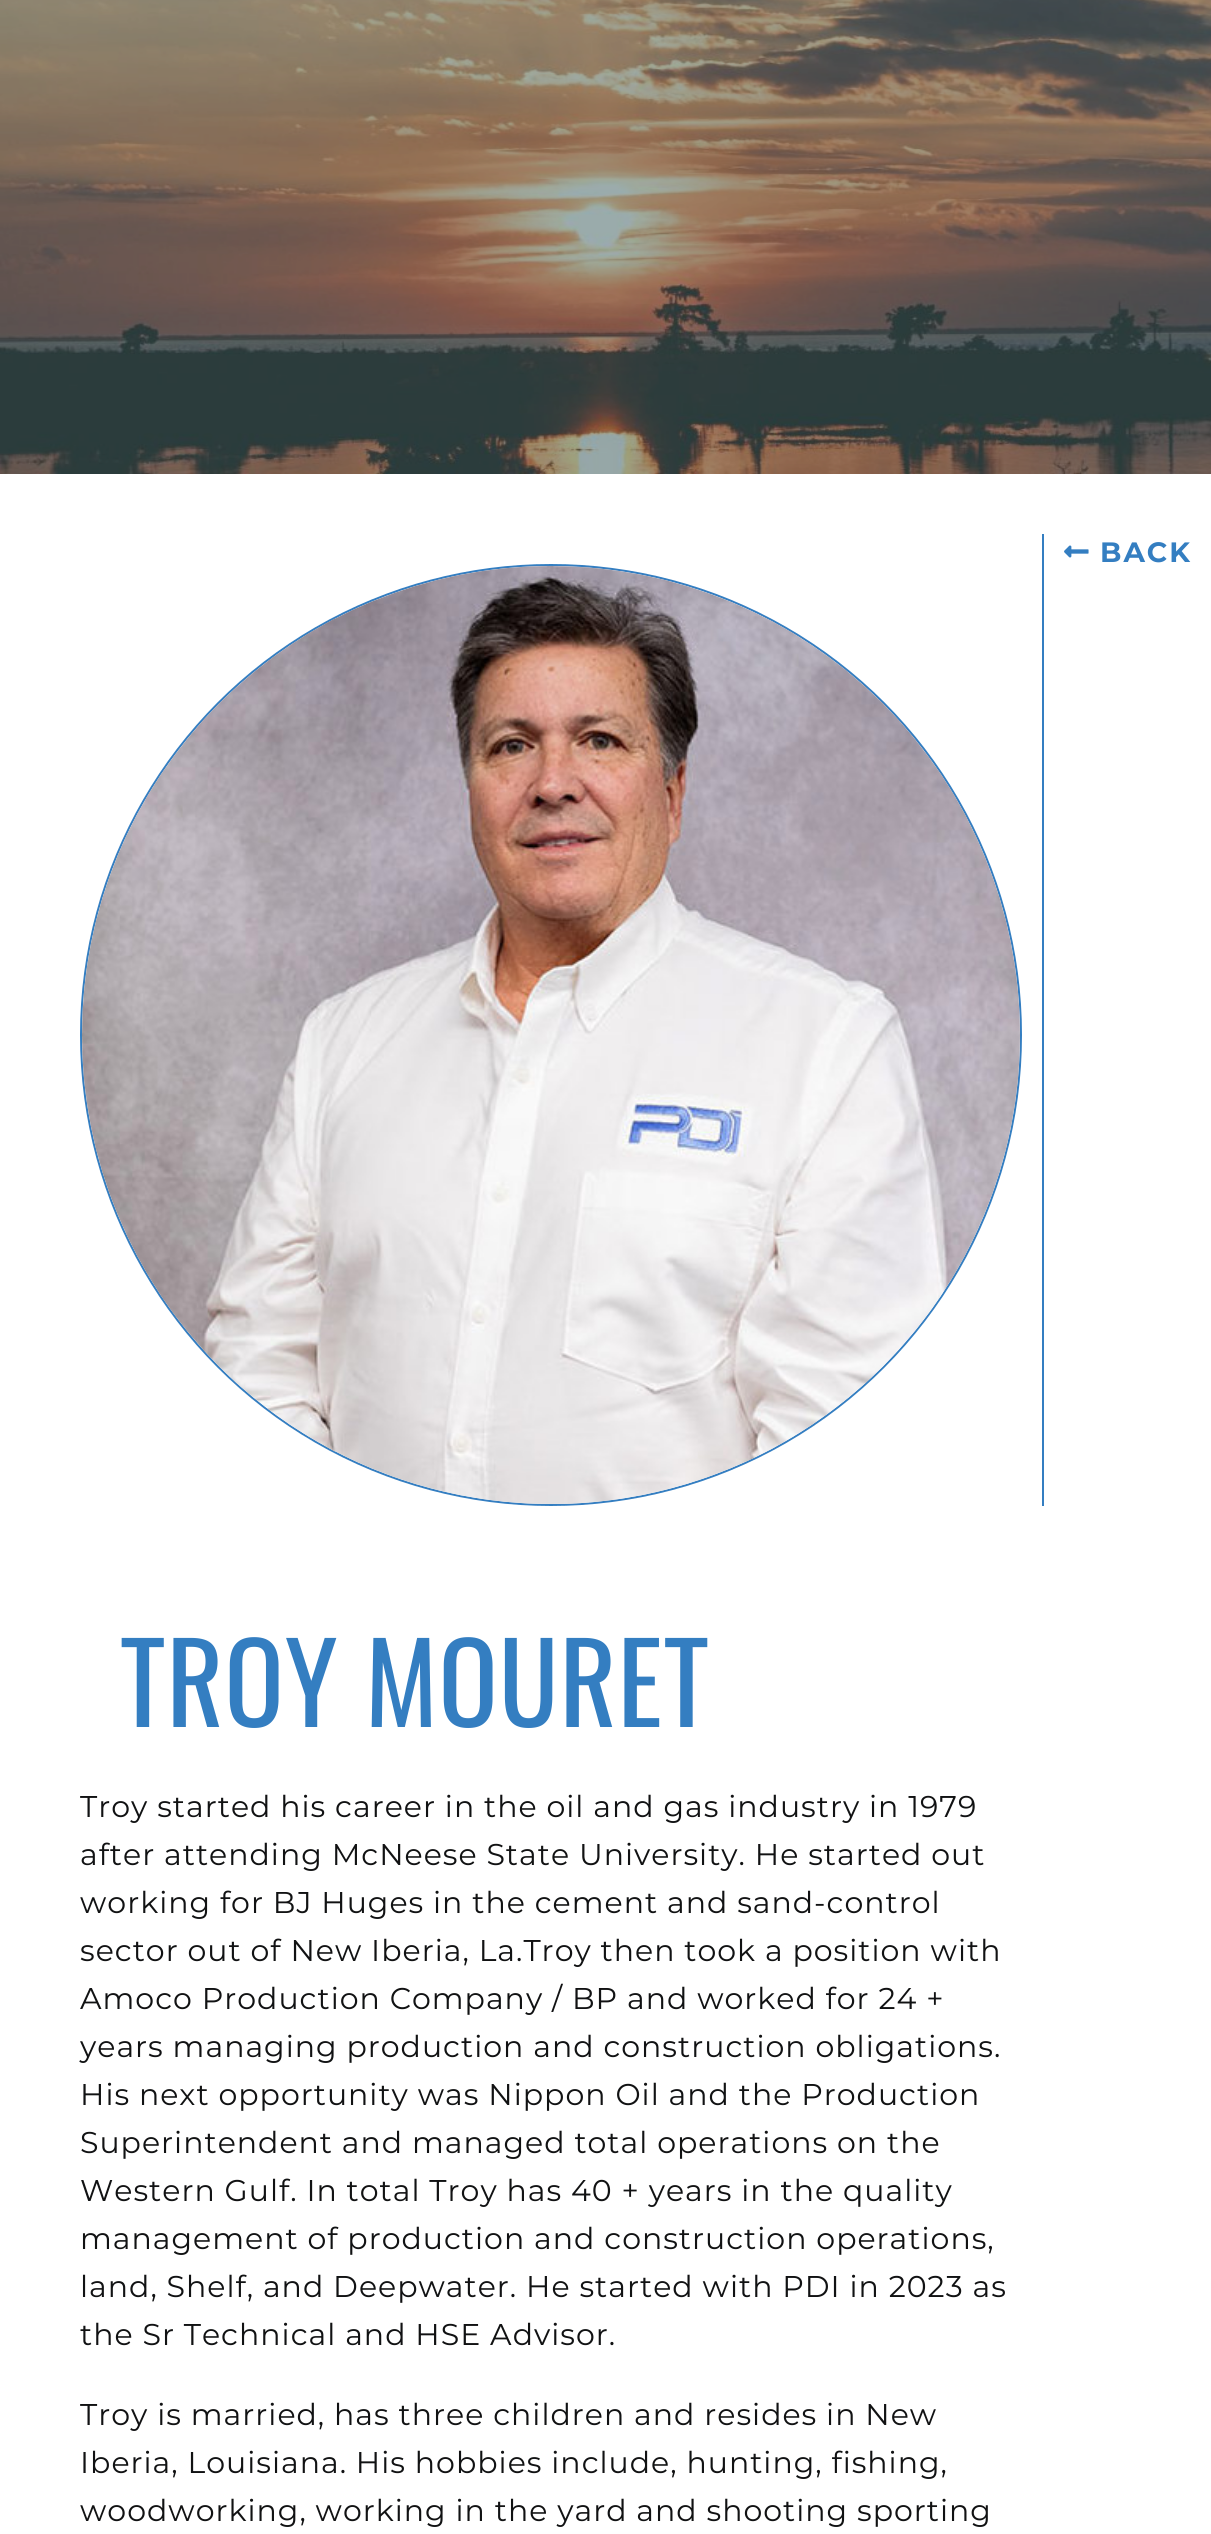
import math
import cairo


def write_spaced(ctx, x, y, s, letter, word):
	ctx.move_to(x, y)
	for ch in s:
		ctx.show_text(ch)
		ctx.rel_move_to(letter + word * (ch == ' '), 0)

def paste(ctx, path, x, y, w, h):
	ctx.save()
	ctx.set_source_surface(cairo.ImageSurface.create_from_png(path), x, y)
	ctx.rectangle(x, y, w, h)
	ctx.fill()
	ctx.restore()

def draw(ctx):
	ctx.set_source_rgb(1, 1, 1)
	ctx.paint()
	paste(ctx, 'media/1.png', 0, 0, 1211, 474)
	paste(ctx, 'media/2.png', 1064, 545, 25, 13)
	ctx.select_font_face('Montserrat', cairo.FONT_SLANT_NORMAL, cairo.FONT_WEIGHT_BOLD)
	ctx.set_font_size(28)
	ctx.set_source_rgb(0.204, 0.494, 0.757)
	write_spaced(ctx, 1100, 562, 'BACK', 2, 0)
	ctx.rectangle(1042, 534, 2, 972)
	ctx.fill()
	ctx.arc(551, 1035, 470, 0, 2 * math.pi)
	ctx.stroke()
	paste(ctx, 'media/3.png', 82, 566, 938, 938)
	ctx.select_font_face('Oswald')
	ctx.set_font_size(110)
	write_spaced(ctx, 120, 1727, 'TROY MOURET', 1, 0)
	ctx.select_font_face('Montserrat')
	ctx.set_font_size(30)
	ctx.set_source_rgb(0.067, 0.071, 0.075)
	for x, y, s in [
		(80, 1817, 'Troy started his career in the oil and gas industry in 1979'),
		(80, 1865, 'after attending McNeese State University. He started out'),
		(80, 1913, 'working for BJ Huges in the cement and sand-control'),
		(80, 1961, 'sector out of New Iberia, La.Troy then took a position with'),
		(80, 2009, 'Amoco Production Company / BP and worked for 24 +'),
		(80, 2057, 'years managing production and construction obligations.'),
		(80, 2105, 'His next opportunity was Nippon Oil and the Production'),
		(80, 2153, 'Superintendent and managed total operations on the'),
		(80, 2201, 'Western Gulf. In total Troy has 40 + years in the quality'),
		(80, 2249, 'management of production and construction operations,'),
		(80, 2297, 'land, Shelf, and Deepwater. He started with PDI in 2023 as'),
		(80, 2345, 'the Sr Technical and HSE Advisor.'),
		(80, 2425, 'Troy is married, has three children and resides in New'),
		(80, 2473, 'Iberia, Louisiana. His hobbies include, hunting, fishing,'),
		(80, 2521, 'woodworking, working in the yard and shooting sporting'),
	]:
		write_spaced(ctx, x, y, s, 1, 0)


surface = cairo.ImageSurface(cairo.FORMAT_RGB24, 1211, 2534)
ctx = cairo.Context(surface)
options = cairo.FontOptions()
options.set_hint_metrics(cairo.HINT_METRICS_OFF)
options.set_hint_style(cairo.HINT_STYLE_NONE)
ctx.set_font_options(options)
ctx.set_miter_limit(4)
draw(ctx)
surface.write_to_png('image.png')
